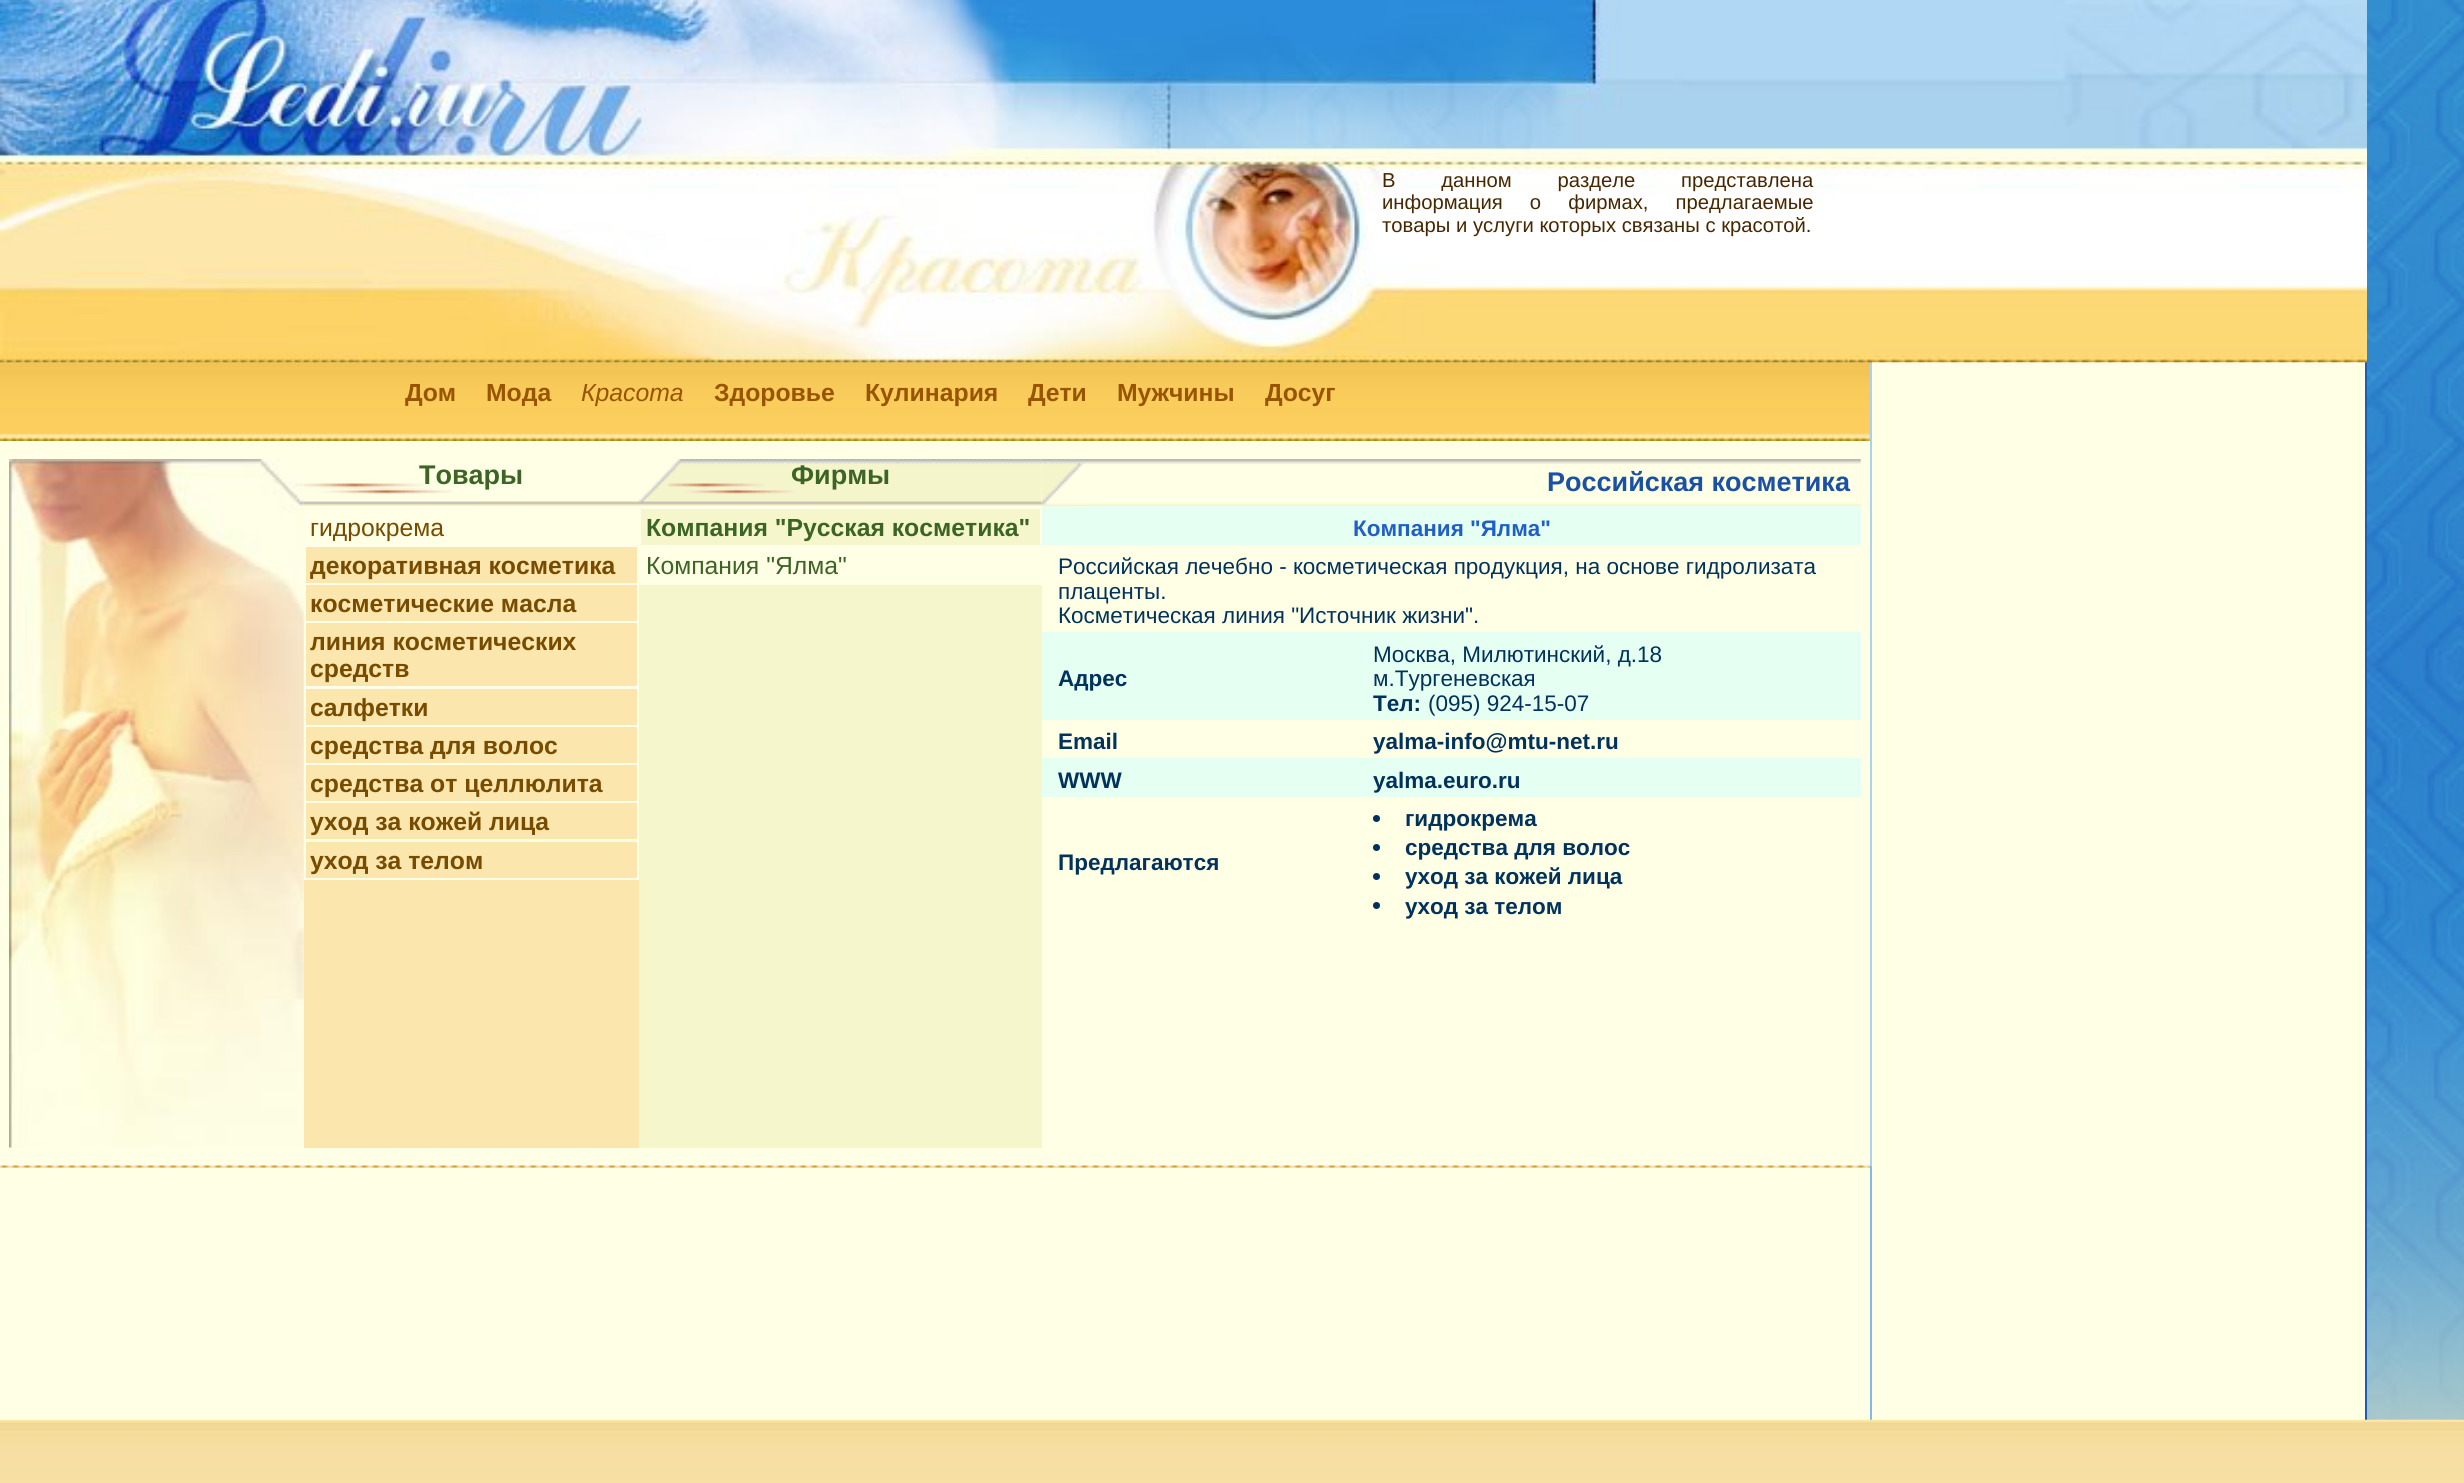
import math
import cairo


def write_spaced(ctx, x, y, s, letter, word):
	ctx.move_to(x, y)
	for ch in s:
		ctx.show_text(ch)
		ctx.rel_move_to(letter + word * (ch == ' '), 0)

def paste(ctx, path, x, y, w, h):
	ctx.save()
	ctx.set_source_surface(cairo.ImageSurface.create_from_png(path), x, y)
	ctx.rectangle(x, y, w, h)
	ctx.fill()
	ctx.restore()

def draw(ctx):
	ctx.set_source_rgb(0.663, 0.824, 0.933)
	ctx.paint()
	paste(ctx, 'media/1.png', 0, 157, 1872, 1)
	paste(ctx, 'media/6.png', 0, 157, 1872, 206)
	paste(ctx, 'media/2.png', 0, 0, 1872, 158)
	paste(ctx, 'media/3.png', 1872, 157, 495, 1)
	paste(ctx, 'media/8.png', 1872, 157, 495, 1)
	paste(ctx, 'media/4.png', 1872, 0, 495, 158)
	paste(ctx, 'media/5.png', 2367, 0, 97, 1420)
	paste(ctx, 'media/10.png', 0, 362, 1870, 79)
	paste(ctx, 'media/7.png', 0, 157, 1872, 206)
	ctx.set_source_rgb(1, 1, 0.902)
	ctx.rectangle(1872, 362, 493, 1058)
	ctx.fill()
	ctx.set_source_rgb(0.122, 0.361, 0.725)
	ctx.rectangle(2365, 362, 2, 1058)
	ctx.fill()
	paste(ctx, 'media/9.png', 1872, 157, 495, 206)
	ctx.select_font_face('Liberation Sans')
	ctx.set_font_size(20.25)
	ctx.set_source_rgb(0.278, 0.153, 0)
	write_spaced(ctx, 1382, 187, 'В данном разделе представлена', 0, 40)
	write_spaced(ctx, 1382, 209, 'информация о фирмах, предлагаемые', 0, 21.5)
	ctx.move_to(1382, 232)
	ctx.show_text('товары и услуги которых связаны с красотой.')
	ctx.select_font_face('Liberation Sans', cairo.FONT_SLANT_NORMAL, cairo.FONT_WEIGHT_BOLD)
	ctx.set_font_size(24.75)
	ctx.set_source_rgb(0.6, 0.329, 0)
	ctx.move_to(405, 401)
	ctx.show_text('Дом')
	ctx.move_to(486, 401)
	ctx.show_text('Мода')
	ctx.select_font_face('Liberation Sans', cairo.FONT_SLANT_ITALIC)
	ctx.move_to(581, 401)
	ctx.show_text('Красота')
	ctx.select_font_face('Liberation Sans', cairo.FONT_SLANT_NORMAL, cairo.FONT_WEIGHT_BOLD)
	for x, y, s in [
		(714, 401, 'Здоровье'),
		(865, 401, 'Кулинария'),
		(1028, 401, 'Дети'),
		(1117, 401, 'Мужчины'),
		(1265, 401, 'Досуг'),
	]:
		ctx.move_to(x, y)
		ctx.show_text(s)
	ctx.set_source_rgb(1, 1, 0.902)
	ctx.rectangle(0, 441, 1870, 725)
	ctx.fill()
	paste(ctx, 'media/12.png', 303, 483, 336, 24)
	paste(ctx, 'media/11.png', 9, 459, 295, 689)
	ctx.set_font_size(27)
	ctx.set_source_rgb(0.235, 0.392, 0.145)
	ctx.move_to(419, 484)
	ctx.show_text('Товары')
	paste(ctx, 'media/13.png', 639, 459, 403, 47)
	ctx.move_to(791, 484)
	ctx.show_text('Фирмы')
	paste(ctx, 'media/14.png', 1041, 459, 820, 47)
	ctx.set_source_rgb(0.898, 1, 0.949)
	ctx.rectangle(1042, 506, 819, 39)
	ctx.fill()
	paste(ctx, 'media/15.png', 1041, 459, 46, 48)
	ctx.set_source_rgb(0.102, 0.314, 0.651)
	ctx.move_to(1547, 491)
	ctx.show_text('Российская косметика')
	ctx.set_source_rgb(0.984, 0.902, 0.678)
	ctx.rectangle(304, 880, 335, 268)
	ctx.fill()
	ctx.set_source_rgb(1, 1, 0.902)
	ctx.rectangle(304, 506, 335, 1)
	ctx.fill()
	ctx.select_font_face('Liberation Sans')
	ctx.set_font_size(24.75)
	ctx.set_source_rgb(0.467, 0.294, 0)
	ctx.move_to(310, 536)
	ctx.show_text('гидрокрема')
	ctx.set_source_rgb(0.984, 0.902, 0.678)
	ctx.rectangle(306, 547, 331, 36)
	ctx.fill()
	ctx.select_font_face('Liberation Sans', cairo.FONT_SLANT_NORMAL, cairo.FONT_WEIGHT_BOLD)
	ctx.set_source_rgb(0.467, 0.294, 0)
	ctx.move_to(310, 574)
	ctx.show_text('декоративная косметика')
	ctx.set_source_rgb(0.984, 0.902, 0.678)
	ctx.rectangle(306, 585, 331, 36)
	ctx.fill()
	ctx.set_source_rgb(0.467, 0.294, 0)
	ctx.move_to(310, 612)
	ctx.show_text('косметические масла')
	ctx.set_source_rgb(0.984, 0.902, 0.678)
	ctx.rectangle(306, 623, 331, 63)
	ctx.fill()
	ctx.set_source_rgb(0.467, 0.294, 0)
	ctx.move_to(310, 650)
	ctx.show_text('линия косметических')
	ctx.move_to(310, 677)
	ctx.show_text('средств')
	ctx.set_source_rgb(0.984, 0.902, 0.678)
	ctx.rectangle(306, 689, 331, 36)
	ctx.fill()
	ctx.set_source_rgb(0.467, 0.294, 0)
	ctx.move_to(310, 716)
	ctx.show_text('салфетки')
	ctx.set_source_rgb(0.984, 0.902, 0.678)
	ctx.rectangle(306, 727, 331, 36)
	ctx.fill()
	ctx.set_source_rgb(0.467, 0.294, 0)
	ctx.move_to(310, 754)
	ctx.show_text('средства для волос')
	ctx.set_source_rgb(0.984, 0.902, 0.678)
	ctx.rectangle(306, 765, 331, 36)
	ctx.fill()
	ctx.set_source_rgb(0.467, 0.294, 0)
	ctx.move_to(310, 792)
	ctx.show_text('средства от целлюлита')
	ctx.set_source_rgb(0.984, 0.902, 0.678)
	ctx.rectangle(306, 803, 331, 36)
	ctx.fill()
	ctx.set_source_rgb(0.467, 0.294, 0)
	ctx.move_to(310, 830)
	ctx.show_text('уход за кожей лица')
	ctx.set_source_rgb(0.984, 0.902, 0.678)
	ctx.rectangle(306, 842, 331, 36)
	ctx.fill()
	ctx.set_source_rgb(0.467, 0.294, 0)
	ctx.move_to(310, 869)
	ctx.show_text('уход за телом')
	ctx.set_source_rgb(0.961, 0.961, 0.8)
	ctx.rectangle(639, 585, 403, 563)
	ctx.fill()
	ctx.rectangle(641, 509, 399, 36)
	ctx.fill()
	ctx.set_source_rgb(0.235, 0.392, 0.145)
	ctx.move_to(646, 536)
	ctx.show_text('Компания "Русская косметика"')
	ctx.select_font_face('Liberation Sans')
	ctx.move_to(646, 574)
	ctx.show_text('Компания "Ялма"')
	ctx.select_font_face('Liberation Sans', cairo.FONT_SLANT_NORMAL, cairo.FONT_WEIGHT_BOLD)
	ctx.set_font_size(22.5)
	ctx.set_source_rgb(0.122, 0.373, 0.78)
	ctx.move_to(1353, 536)
	ctx.show_text('Компания "Ялма"')
	ctx.select_font_face('Liberation Sans')
	ctx.set_source_rgb(0, 0.196, 0.357)
	for x, y, s in [
		(1058, 574, 'Российская лечебно - косметическая продукция, на основе гидролизата'),
		(1058, 599, 'плаценты.'),
		(1058, 623, 'Косметическая линия "Источник жизни".'),
	]:
		ctx.move_to(x, y)
		ctx.show_text(s)
	ctx.set_source_rgb(0.898, 1, 0.949)
	ctx.rectangle(1042, 632, 819, 88)
	ctx.fill()
	ctx.select_font_face('Liberation Sans', cairo.FONT_SLANT_NORMAL, cairo.FONT_WEIGHT_BOLD)
	ctx.set_source_rgb(0, 0.196, 0.357)
	ctx.move_to(1058, 686)
	ctx.show_text('Адрес')
	ctx.select_font_face('Liberation Sans')
	ctx.move_to(1373, 662)
	ctx.show_text('Москва, Милютинский, д.18')
	ctx.move_to(1373, 686)
	ctx.show_text('м.Тургеневская')
	ctx.select_font_face('Liberation Sans', cairo.FONT_SLANT_NORMAL, cairo.FONT_WEIGHT_BOLD)
	ctx.move_to(1373, 711)
	ctx.show_text('Тел:')
	ctx.select_font_face('Liberation Sans')
	ctx.move_to(1428, 711)
	ctx.show_text('(095) 924-15-07')
	ctx.select_font_face('Liberation Sans', cairo.FONT_SLANT_NORMAL, cairo.FONT_WEIGHT_BOLD)
	ctx.move_to(1058, 749)
	ctx.show_text('Email')
	ctx.move_to(1373, 749)
	ctx.show_text('yalma-info@mtu-net.ru')
	ctx.set_source_rgb(0.898, 1, 0.949)
	ctx.rectangle(1042, 758, 819, 39)
	ctx.fill()
	ctx.set_source_rgb(0, 0.196, 0.357)
	for x, y, s in [
		(1058, 788, 'WWW'),
		(1373, 788, 'yalma.euro.ru'),
		(1058, 870, 'Предлагаются'),
	]:
		ctx.move_to(x, y)
		ctx.show_text(s)
	ctx.new_path()
	ctx.arc(1376.5, 818.5, 3.5, 0, 2 * math.pi)
	ctx.fill()
	ctx.move_to(1405, 826)
	ctx.show_text('гидрокрема')
	ctx.new_path()
	ctx.arc(1376.5, 847.5, 3.5, 0, 2 * math.pi)
	ctx.fill()
	ctx.move_to(1405, 855)
	ctx.show_text('средства для волос')
	ctx.new_path()
	ctx.arc(1376.5, 876.5, 3.5, 0, 2 * math.pi)
	ctx.fill()
	ctx.move_to(1405, 884)
	ctx.show_text('уход за кожей лица')
	ctx.new_path()
	ctx.arc(1376.5, 905.5, 3.5, 0, 2 * math.pi)
	ctx.fill()
	ctx.move_to(1405, 914)
	ctx.show_text('уход за телом')
	paste(ctx, 'media/16.png', 0, 1165, 1870, 3)
	ctx.set_source_rgb(0.506, 0.725, 0.91)
	ctx.rectangle(1870, 1166, 2, 254)
	ctx.fill()
	ctx.set_source_rgb(1, 1, 0.902)
	ctx.rectangle(0, 1168, 1870, 252)
	ctx.fill()
	paste(ctx, 'media/17.png', 0, 1419, 1872, 64)
	paste(ctx, 'media/18.png', 1872, 1419, 495, 64)
	paste(ctx, 'media/19.png', 2367, 1419, 97, 64)


surface = cairo.ImageSurface(cairo.FORMAT_RGB24, 2464, 1483)
ctx = cairo.Context(surface)
options = cairo.FontOptions()
options.set_hint_metrics(cairo.HINT_METRICS_OFF)
options.set_hint_style(cairo.HINT_STYLE_NONE)
ctx.set_font_options(options)
ctx.set_miter_limit(4)
draw(ctx)
surface.write_to_png('image.png')
